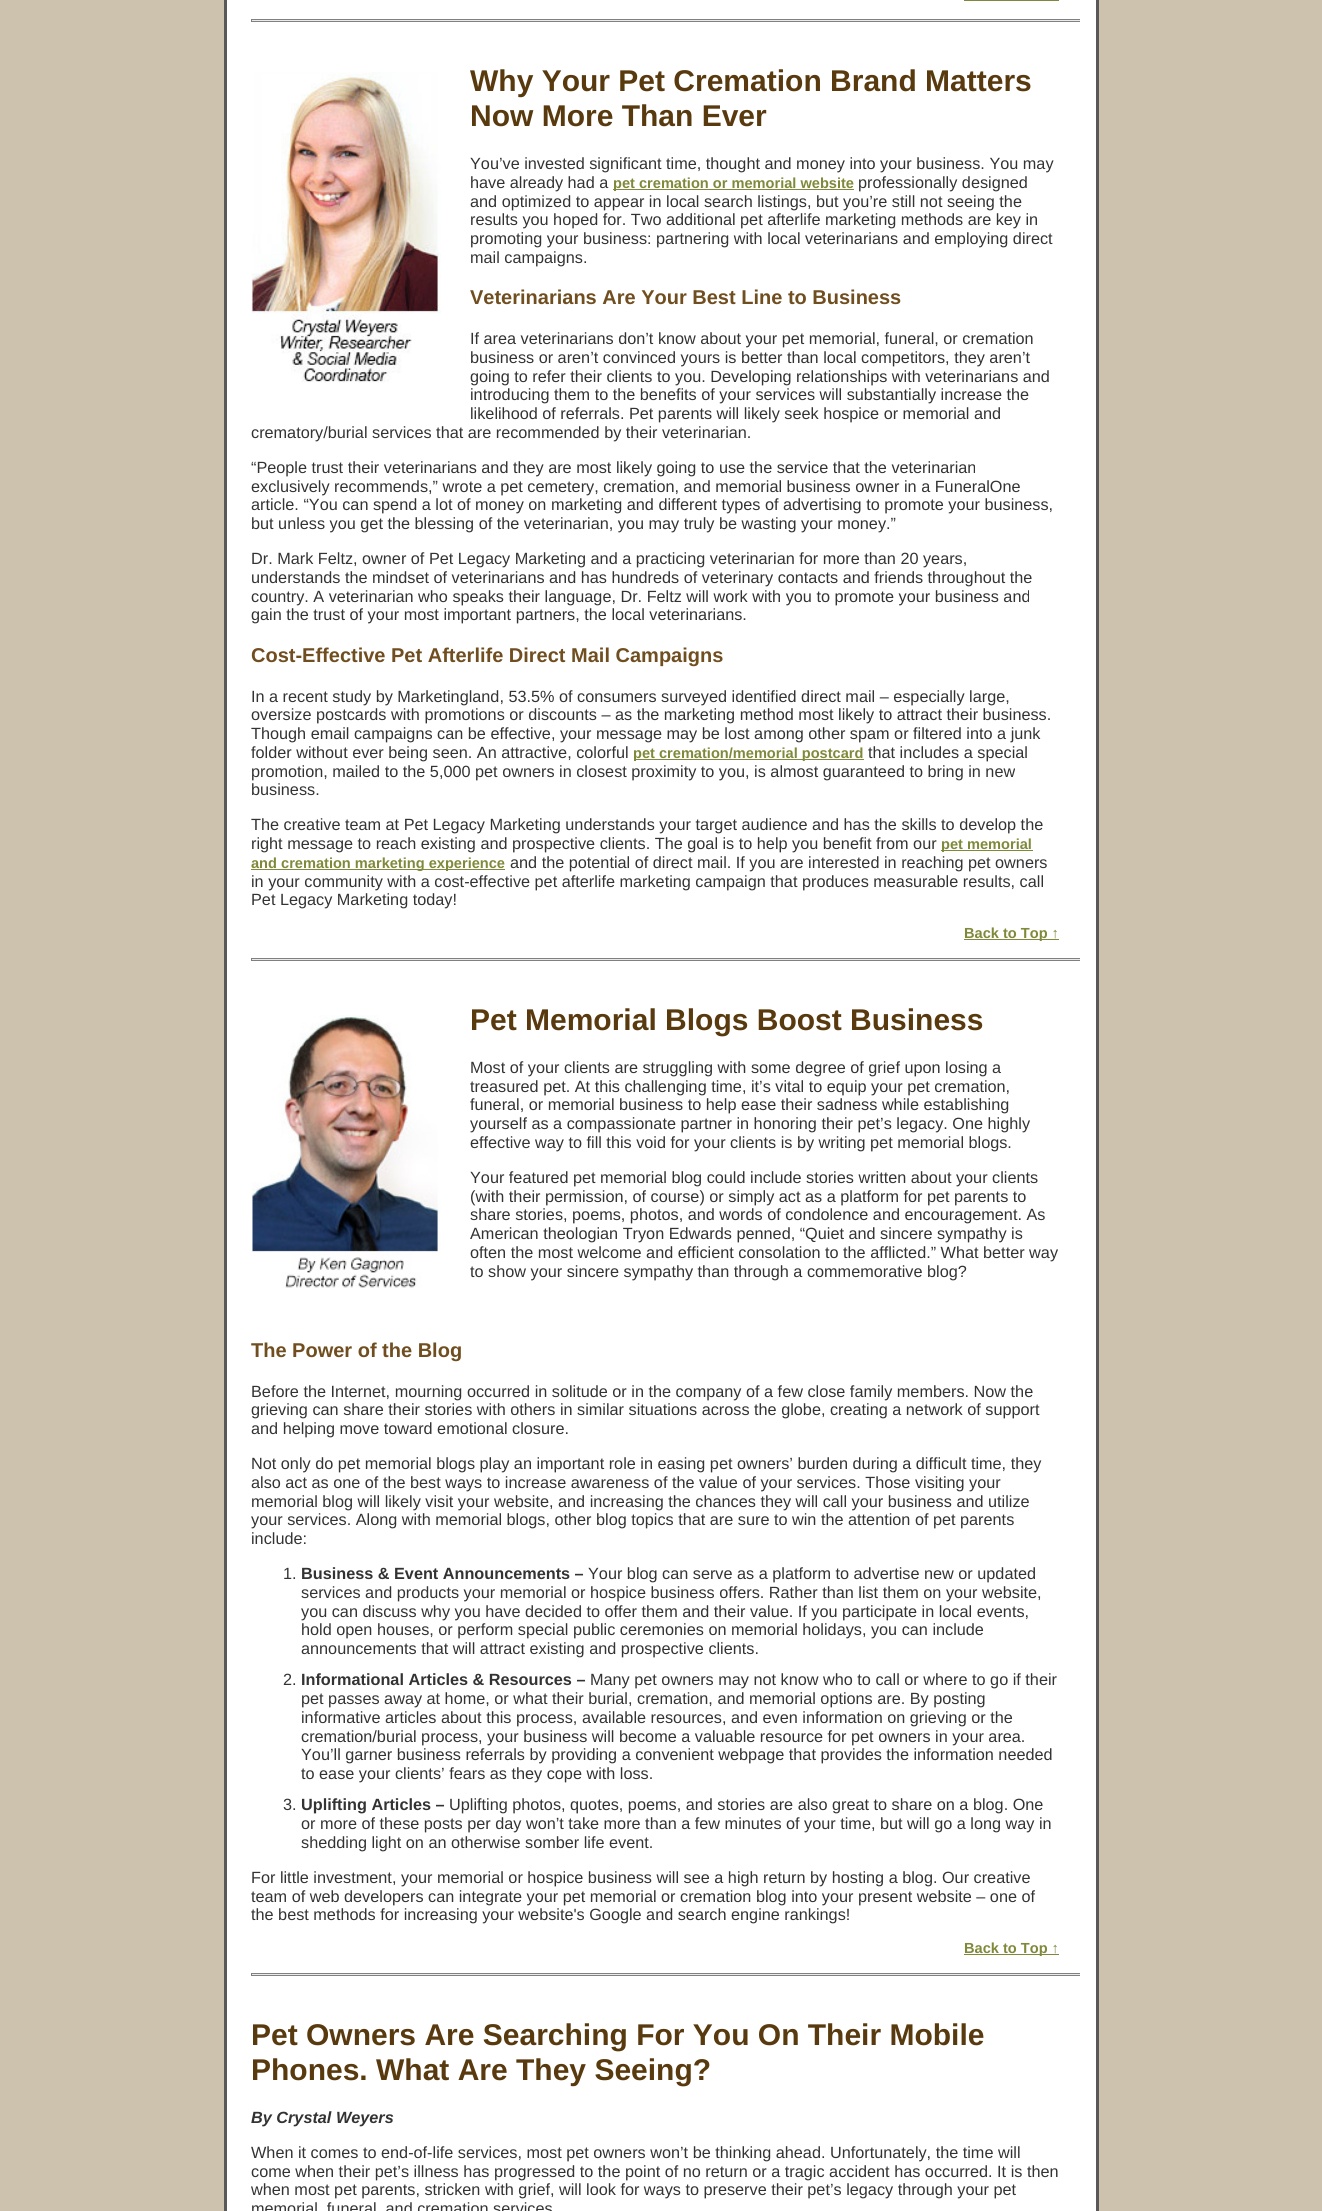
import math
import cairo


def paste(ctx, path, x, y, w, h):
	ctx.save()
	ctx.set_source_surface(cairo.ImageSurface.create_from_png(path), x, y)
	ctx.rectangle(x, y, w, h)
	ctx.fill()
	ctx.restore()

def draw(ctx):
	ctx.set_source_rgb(0.8, 0.761, 0.682)
	ctx.paint()
	ctx.set_source_rgb(1, 1, 1)
	ctx.rectangle(225.5, -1.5, 872, 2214)
	ctx.fill_preserve()
	ctx.set_source_rgb(0.345, 0.345, 0.345)
	ctx.set_line_width(3)
	ctx.stroke()
	ctx.set_source_rgb(0.502, 0.537, 0.224)
	ctx.rectangle(964, 0, 95, 1)
	ctx.fill()
	ctx.set_source_rgb(0.502, 0.502, 0.502)
	ctx.rectangle(251, 19, 829, 3)
	ctx.fill()
	ctx.set_source_rgb(0.918, 0.914, 0.914)
	ctx.rectangle(251, 20, 829, 1)
	ctx.fill()
	ctx.set_source_rgb(0.502, 0.502, 0.502)
	ctx.rectangle(251, 19, 1, 3)
	ctx.fill()
	paste(ctx, 'media/1.png', 251, 72, 190, 311)
	ctx.select_font_face('Liberation Sans', cairo.FONT_SLANT_NORMAL, cairo.FONT_WEIGHT_BOLD)
	ctx.set_font_size(30)
	ctx.set_source_rgb(0.349, 0.227, 0.059)
	ctx.move_to(470, 91)
	ctx.show_text('Why Your Pet Cremation Brand Matters')
	ctx.move_to(470, 126)
	ctx.show_text('Now More Than Ever')
	ctx.select_font_face('Liberation Sans')
	ctx.set_font_size(16.25)
	ctx.set_source_rgb(0.2, 0.2, 0.2)
	ctx.move_to(470, 169)
	ctx.show_text('You’ve invested significant time, thought and money into your business. You may')
	ctx.move_to(470, 188)
	ctx.show_text('have already had a')
	ctx.set_source_rgb(0.502, 0.537, 0.224)
	ctx.rectangle(613, 189, 241, 1)
	ctx.fill()
	ctx.select_font_face('Liberation Sans', cairo.FONT_SLANT_NORMAL, cairo.FONT_WEIGHT_BOLD)
	ctx.set_font_size(14.6)
	ctx.move_to(613, 188)
	ctx.show_text('pet cremation or memorial website')
	ctx.select_font_face('Liberation Sans')
	ctx.set_font_size(16.25)
	ctx.set_source_rgb(0.2, 0.2, 0.2)
	for x, y, s in [
		(858, 188, 'professionally designed'),
		(470, 207, 'and optimized to appear in local search listings, but you’re still not seeing the'),
		(470, 225, 'results you hoped for. Two additional pet afterlife marketing methods are key in'),
		(470, 244, 'promoting your business: partnering with local veterinarians and employing direct'),
		(470, 263, 'mail campaigns.'),
	]:
		ctx.move_to(x, y)
		ctx.show_text(s)
	ctx.select_font_face('Liberation Sans', cairo.FONT_SLANT_NORMAL, cairo.FONT_WEIGHT_BOLD)
	ctx.set_font_size(20)
	ctx.set_source_rgb(0.439, 0.306, 0.122)
	ctx.move_to(470, 304)
	ctx.show_text('Veterinarians Are Your Best Line to Business')
	ctx.select_font_face('Liberation Sans')
	ctx.set_font_size(16.25)
	ctx.set_source_rgb(0.2, 0.2, 0.2)
	for x, y, s in [
		(470, 344, 'If area veterinarians don’t know about your pet memorial, funeral, or cremation'),
		(470, 363, 'business or aren’t convinced yours is better than local competitors, they aren’t'),
		(470, 382, 'going to refer their clients to you. Developing relationships with veterinarians and'),
		(470, 400, 'introducing them to the benefits of your services will substantially increase the'),
		(470, 419, 'likelihood of referrals. Pet parents will likely seek hospice or memorial and'),
		(251, 438, 'crematory/burial services that are recommended by their veterinarian.'),
		(251, 473, '“People trust their veterinarians and they are most likely going to use the service that the veterinarian'),
		(251, 492, 'exclusively recommends,” wrote a pet cemetery, cremation, and memorial business owner in a FuneralOne'),
		(251, 510, 'article. “You can spend a lot of money on marketing and different types of advertising to promote your business,'),
		(251, 529, 'but unless you get the blessing of the veterinarian, you may truly be wasting your money.”'),
		(251, 564, 'Dr. Mark Feltz, owner of Pet Legacy Marketing and a practicing veterinarian for more than 20 years,'),
		(251, 583, 'understands the mindset of veterinarians and has hundreds of veterinary contacts and friends throughout the'),
		(251, 602, 'country. A veterinarian who speaks their language, Dr. Feltz will work with you to promote your business and'),
		(251, 620, 'gain the trust of your most important partners, the local veterinarians.'),
	]:
		ctx.move_to(x, y)
		ctx.show_text(s)
	ctx.select_font_face('Liberation Sans', cairo.FONT_SLANT_NORMAL, cairo.FONT_WEIGHT_BOLD)
	ctx.set_font_size(20)
	ctx.set_source_rgb(0.439, 0.306, 0.122)
	ctx.move_to(251, 662)
	ctx.show_text('Cost-Effective Pet Afterlife Direct Mail Campaigns')
	ctx.select_font_face('Liberation Sans')
	ctx.set_font_size(16.25)
	ctx.set_source_rgb(0.2, 0.2, 0.2)
	for x, y, s in [
		(251, 702, 'In a recent study by Marketingland, 53.5% of consumers surveyed identified direct mail – especially large,'),
		(251, 720, 'oversize postcards with promotions or discounts – as the marketing method most likely to attract their business.'),
		(251, 739, 'Though email campaigns can be effective, your message may be lost among other spam or filtered into a junk'),
		(251, 758, 'folder without ever being seen. An attractive, colorful'),
	]:
		ctx.move_to(x, y)
		ctx.show_text(s)
	ctx.set_source_rgb(0.502, 0.537, 0.224)
	ctx.rectangle(634, 759, 230, 1)
	ctx.fill()
	ctx.select_font_face('Liberation Sans', cairo.FONT_SLANT_NORMAL, cairo.FONT_WEIGHT_BOLD)
	ctx.set_font_size(14.6)
	ctx.move_to(633, 758)
	ctx.show_text('pet cremation/memorial postcard')
	ctx.select_font_face('Liberation Sans')
	ctx.set_font_size(16.25)
	ctx.set_source_rgb(0.2, 0.2, 0.2)
	for x, y, s in [
		(868, 758, 'that includes a special'),
		(251, 777, 'promotion, mailed to the 5,000 pet owners in closest proximity to you, is almost guaranteed to bring in new'),
		(251, 795, 'business.'),
		(251, 830, 'The creative team at Pet Legacy Marketing understands your target audience and has the skills to develop the'),
		(251, 849, 'right message to reach existing and prospective clients. The goal is to help you benefit from our'),
	]:
		ctx.move_to(x, y)
		ctx.show_text(s)
	ctx.set_source_rgb(0.502, 0.537, 0.224)
	ctx.rectangle(941, 850, 92, 1)
	ctx.fill()
	ctx.select_font_face('Liberation Sans', cairo.FONT_SLANT_NORMAL, cairo.FONT_WEIGHT_BOLD)
	ctx.set_font_size(14.6)
	ctx.move_to(941, 849)
	ctx.show_text('pet memorial')
	ctx.rectangle(251, 869, 254, 1)
	ctx.fill()
	ctx.move_to(251, 868)
	ctx.show_text('and cremation marketing experience')
	ctx.select_font_face('Liberation Sans')
	ctx.set_font_size(16.25)
	ctx.set_source_rgb(0.2, 0.2, 0.2)
	for x, y, s in [
		(510, 868, 'and the potential of direct mail. If you are interested in reaching pet owners'),
		(251, 887, 'in your community with a cost-effective pet afterlife marketing campaign that produces measurable results, call'),
		(251, 905, 'Pet Legacy Marketing today!'),
	]:
		ctx.move_to(x, y)
		ctx.show_text(s)
	ctx.set_source_rgb(0.502, 0.537, 0.224)
	ctx.rectangle(964, 939, 95, 1)
	ctx.fill()
	ctx.select_font_face('Liberation Sans', cairo.FONT_SLANT_NORMAL, cairo.FONT_WEIGHT_BOLD)
	ctx.set_font_size(14.6)
	ctx.move_to(964, 938)
	ctx.show_text('Back to Top ↑')
	ctx.set_source_rgb(0.502, 0.502, 0.502)
	ctx.rectangle(251, 958, 829, 3)
	ctx.fill()
	ctx.set_source_rgb(0.918, 0.914, 0.914)
	ctx.rectangle(251, 959, 829, 1)
	ctx.fill()
	ctx.set_source_rgb(0.502, 0.502, 0.502)
	ctx.rectangle(251, 958, 1, 3)
	ctx.fill()
	paste(ctx, 'media/2.png', 251, 1015, 190, 273)
	ctx.set_font_size(30)
	ctx.set_source_rgb(0.349, 0.227, 0.059)
	ctx.move_to(470, 1030)
	ctx.show_text('Pet Memorial Blogs Boost Business')
	ctx.select_font_face('Liberation Sans')
	ctx.set_font_size(16.25)
	ctx.set_source_rgb(0.2, 0.2, 0.2)
	for x, y, s in [
		(470, 1073, 'Most of your clients are struggling with some degree of grief upon losing a'),
		(470, 1092, 'treasured pet. At this challenging time, it’s vital to equip your pet cremation,'),
		(470, 1110, 'funeral, or memorial business to help ease their sadness while establishing'),
		(470, 1129, 'yourself as a compassionate partner in honoring their pet’s legacy. One highly'),
		(470, 1148, 'effective way to fill this void for your clients is by writing pet memorial blogs.'),
		(470, 1183, 'Your featured pet memorial blog could include stories written about your clients'),
		(470, 1202, '(with their permission, of course) or simply act as a platform for pet parents to'),
		(470, 1220, 'share stories, poems, photos, and words of condolence and encouragement. As'),
		(470, 1239, 'American theologian Tryon Edwards penned, “Quiet and sincere sympathy is'),
		(470, 1258, 'often the most welcome and efficient consolation to the afflicted.” What better way'),
		(470, 1277, 'to show your sincere sympathy than through a commemorative blog?'),
	]:
		ctx.move_to(x, y)
		ctx.show_text(s)
	ctx.select_font_face('Liberation Sans', cairo.FONT_SLANT_NORMAL, cairo.FONT_WEIGHT_BOLD)
	ctx.set_font_size(20)
	ctx.set_source_rgb(0.439, 0.306, 0.122)
	ctx.move_to(251, 1357)
	ctx.show_text('The Power of the Blog')
	ctx.select_font_face('Liberation Sans')
	ctx.set_font_size(16.25)
	ctx.set_source_rgb(0.2, 0.2, 0.2)
	for x, y, s in [
		(251, 1397, 'Before the Internet, mourning occurred in solitude or in the company of a few close family members. Now the'),
		(251, 1415, 'grieving can share their stories with others in similar situations across the globe, creating a network of support'),
		(251, 1434, 'and helping move toward emotional closure.'),
		(251, 1469, 'Not only do pet memorial blogs play an important role in easing pet owners’ burden during a difficult time, they'),
		(251, 1488, 'also act as one of the best ways to increase awareness of the value of your services. Those visiting your'),
		(251, 1507, 'memorial blog will likely visit your website, and increasing the chances they will call your business and utilize'),
		(251, 1525, 'your services. Along with memorial blogs, other blog topics that are sure to win the attention of pet parents'),
		(251, 1544, 'include:'),
		(283, 1579, '1.'),
	]:
		ctx.move_to(x, y)
		ctx.show_text(s)
	ctx.select_font_face('Liberation Sans', cairo.FONT_SLANT_NORMAL, cairo.FONT_WEIGHT_BOLD)
	ctx.move_to(301, 1579)
	ctx.show_text('Business & Event Announcements –')
	ctx.select_font_face('Liberation Sans')
	for x, y, s in [
		(588, 1579, 'Your blog can serve as a platform to advertise new or updated'),
		(301, 1598, 'services and products your memorial or hospice business offers. Rather than list them on your website,'),
		(301, 1617, 'you can discuss why you have decided to offer them and their value. If you participate in local events,'),
		(301, 1635, 'hold open houses, or perform special public ceremonies on memorial holidays, you can include'),
		(301, 1654, 'announcements that will attract existing and prospective clients.'),
		(283, 1685, '2.'),
	]:
		ctx.move_to(x, y)
		ctx.show_text(s)
	ctx.select_font_face('Liberation Sans', cairo.FONT_SLANT_NORMAL, cairo.FONT_WEIGHT_BOLD)
	ctx.move_to(301, 1685)
	ctx.show_text('Informational Articles & Resources –')
	ctx.select_font_face('Liberation Sans')
	for x, y, s in [
		(590, 1685, 'Many pet owners may not know who to call or where to go if their'),
		(301, 1704, 'pet passes away at home, or what their burial, cremation, and memorial options are. By posting'),
		(301, 1723, 'informative articles about this process, available resources, and even information on grieving or the'),
		(301, 1742, 'cremation/burial process, your business will become a valuable resource for pet owners in your area.'),
		(301, 1760, 'You’ll garner business referrals by providing a convenient webpage that provides the information needed'),
		(301, 1779, 'to ease your clients’ fears as they cope with loss.'),
		(283, 1810, '3.'),
	]:
		ctx.move_to(x, y)
		ctx.show_text(s)
	ctx.select_font_face('Liberation Sans', cairo.FONT_SLANT_NORMAL, cairo.FONT_WEIGHT_BOLD)
	ctx.move_to(301, 1810)
	ctx.show_text('Uplifting Articles –')
	ctx.select_font_face('Liberation Sans')
	for x, y, s in [
		(449, 1810, 'Uplifting photos, quotes, poems, and stories are also great to share on a blog. One'),
		(301, 1829, 'or more of these posts per day won’t take more than a few minutes of your time, but will go a long way in'),
		(301, 1848, 'shedding light on an otherwise somber life event.'),
		(251, 1883, 'For little investment, your memorial or hospice business will see a high return by hosting a blog. Our creative'),
		(251, 1902, 'team of web developers can integrate your pet memorial or cremation blog into your present website – one of'),
		(251, 1920, 'the best methods for increasing your website\'s Google and search engine rankings!'),
	]:
		ctx.move_to(x, y)
		ctx.show_text(s)
	ctx.set_source_rgb(0.502, 0.537, 0.224)
	ctx.rectangle(964, 1954, 95, 1)
	ctx.fill()
	ctx.select_font_face('Liberation Sans', cairo.FONT_SLANT_NORMAL, cairo.FONT_WEIGHT_BOLD)
	ctx.set_font_size(14.6)
	ctx.move_to(964, 1953)
	ctx.show_text('Back to Top ↑')
	ctx.set_source_rgb(0.502, 0.502, 0.502)
	ctx.rectangle(251, 1973, 829, 3)
	ctx.fill()
	ctx.set_source_rgb(0.918, 0.914, 0.914)
	ctx.rectangle(251, 1974, 829, 1)
	ctx.fill()
	ctx.set_source_rgb(0.502, 0.502, 0.502)
	ctx.rectangle(251, 1973, 1, 3)
	ctx.fill()
	ctx.set_font_size(30)
	ctx.set_source_rgb(0.349, 0.227, 0.059)
	ctx.move_to(251, 2045)
	ctx.show_text('Pet Owners Are Searching For You On Their Mobile')
	ctx.move_to(251, 2080)
	ctx.show_text('Phones. What Are They Seeing?')
	ctx.select_font_face('Liberation Sans', cairo.FONT_SLANT_ITALIC, cairo.FONT_WEIGHT_BOLD)
	ctx.set_font_size(16.25)
	ctx.set_source_rgb(0.2, 0.2, 0.2)
	ctx.move_to(251, 2123)
	ctx.show_text('By Crystal Weyers')
	ctx.select_font_face('Liberation Sans')
	for x, y, s in [
		(251, 2158, 'When it comes to end-of-life services, most pet owners won’t be thinking ahead. Unfortunately, the time will'),
		(251, 2177, 'come when their pet’s illness has progressed to the point of no return or a tragic accident has occurred. It is then'),
		(251, 2195, 'when most pet parents, stricken with grief, will look for ways to preserve their pet’s legacy through your pet'),
		(251, 2214, 'memorial, funeral, and cremation services'),
	]:
		ctx.move_to(x, y)
		ctx.show_text(s)


surface = cairo.ImageSurface(cairo.FORMAT_RGB24, 1322, 2211)
ctx = cairo.Context(surface)
options = cairo.FontOptions()
options.set_hint_metrics(cairo.HINT_METRICS_OFF)
options.set_hint_style(cairo.HINT_STYLE_NONE)
ctx.set_font_options(options)
ctx.set_miter_limit(4)
draw(ctx)
surface.write_to_png('image.png')
